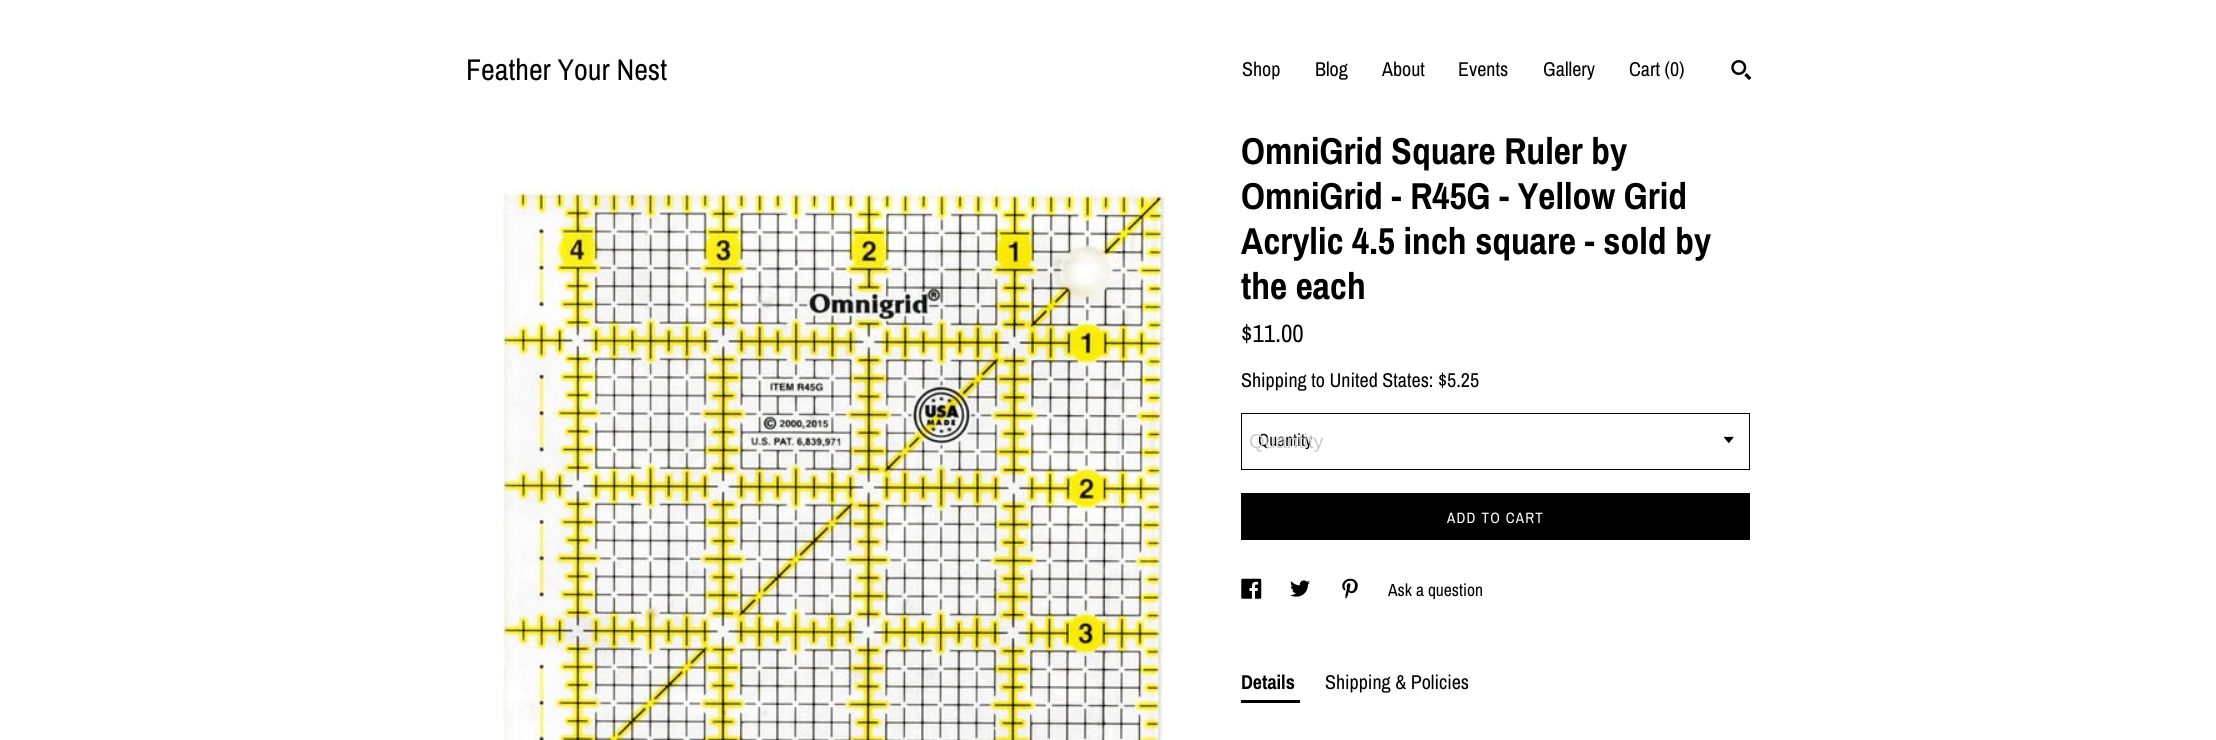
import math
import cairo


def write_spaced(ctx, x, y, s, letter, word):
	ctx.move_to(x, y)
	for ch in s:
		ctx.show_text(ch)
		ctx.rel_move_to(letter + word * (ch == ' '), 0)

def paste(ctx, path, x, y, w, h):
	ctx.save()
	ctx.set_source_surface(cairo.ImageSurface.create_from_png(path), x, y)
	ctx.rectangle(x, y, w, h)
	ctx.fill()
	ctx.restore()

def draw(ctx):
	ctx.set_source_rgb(1, 1, 1)
	ctx.paint()
	ctx.select_font_face('Archivo Narrow')
	ctx.set_font_size(30)
	ctx.set_source_rgb(0, 0, 0)
	ctx.move_to(466, 80)
	ctx.show_text('Feather Your Nest')
	ctx.set_font_size(20)
	for x, y, s in [
		(1242, 76, 'Shop'),
		(1315, 76, 'Blog'),
		(1382, 76, 'About'),
		(1458, 76, 'Events'),
		(1543, 76, 'Gallery'),
		(1629, 76, 'Cart (0)'),
	]:
		ctx.move_to(x, y)
		ctx.show_text(s)
	paste(ctx, 'media/1.png', 1731, 60, 21, 20)
	paste(ctx, 'media/2.png', 502, 188, 664, 552)
	ctx.select_font_face('Archivo Narrow', cairo.FONT_SLANT_NORMAL, cairo.FONT_WEIGHT_BOLD)
	ctx.set_font_size(37.5)
	for x, y, s in [
		(1241, 164, 'OmniGrid Square Ruler by'),
		(1241, 209, 'OmniGrid - R45G - Yellow Grid'),
		(1241, 254, 'Acrylic 4.5 inch square - sold by'),
		(1241, 299, 'the each'),
	]:
		ctx.move_to(x, y)
		ctx.show_text(s)
	ctx.select_font_face('Archivo Narrow')
	ctx.set_font_size(25)
	ctx.move_to(1241, 342)
	ctx.show_text('$11.00')
	ctx.set_font_size(20)
	ctx.move_to(1241, 387)
	ctx.show_text('Shipping to United States: $5.25')
	ctx.rectangle(1241.5, 413.5, 508, 56)
	ctx.set_line_width(1)
	ctx.stroke()
	ctx.set_font_size(17.5)
	ctx.move_to(1258, 446)
	ctx.show_text('Quantity')
	ctx.select_font_face('Liberation Sans')
	ctx.set_font_size(20)
	ctx.set_source_rgb(0.8, 0.8, 0.8)
	ctx.move_to(1249, 448)
	ctx.show_text('Quantity')
	paste(ctx, 'media/3.png', 1723, 436, 11, 8)
	ctx.set_source_rgb(0, 0, 0)
	ctx.rectangle(1241, 493, 509, 47)
	ctx.fill()
	ctx.select_font_face('Archivo Narrow')
	ctx.set_font_size(15)
	ctx.set_source_rgb(1, 1, 1)
	write_spaced(ctx, 1447, 523, 'ADD TO CART', 1.25, 0)
	paste(ctx, 'media/4.png', 1241, 578, 21, 21)
	paste(ctx, 'media/5.png', 1290, 580, 20, 17)
	paste(ctx, 'media/6.png', 1342, 578, 16, 21)
	ctx.set_font_size(17.5)
	ctx.set_source_rgb(0, 0, 0)
	ctx.move_to(1388, 596)
	ctx.show_text('Ask a question')
	ctx.select_font_face('Archivo Narrow', cairo.FONT_SLANT_NORMAL, cairo.FONT_WEIGHT_BOLD)
	ctx.set_font_size(20)
	ctx.move_to(1241, 689)
	ctx.show_text('Details')
	ctx.rectangle(1241, 700, 59, 3)
	ctx.fill()
	ctx.select_font_face('Archivo Narrow')
	ctx.move_to(1325, 689)
	ctx.show_text('Shipping & Policies')


surface = cairo.ImageSurface(cairo.FORMAT_RGB24, 2216, 740)
ctx = cairo.Context(surface)
options = cairo.FontOptions()
options.set_hint_metrics(cairo.HINT_METRICS_OFF)
options.set_hint_style(cairo.HINT_STYLE_NONE)
ctx.set_font_options(options)
ctx.set_miter_limit(4)
draw(ctx)
surface.write_to_png('image.png')
